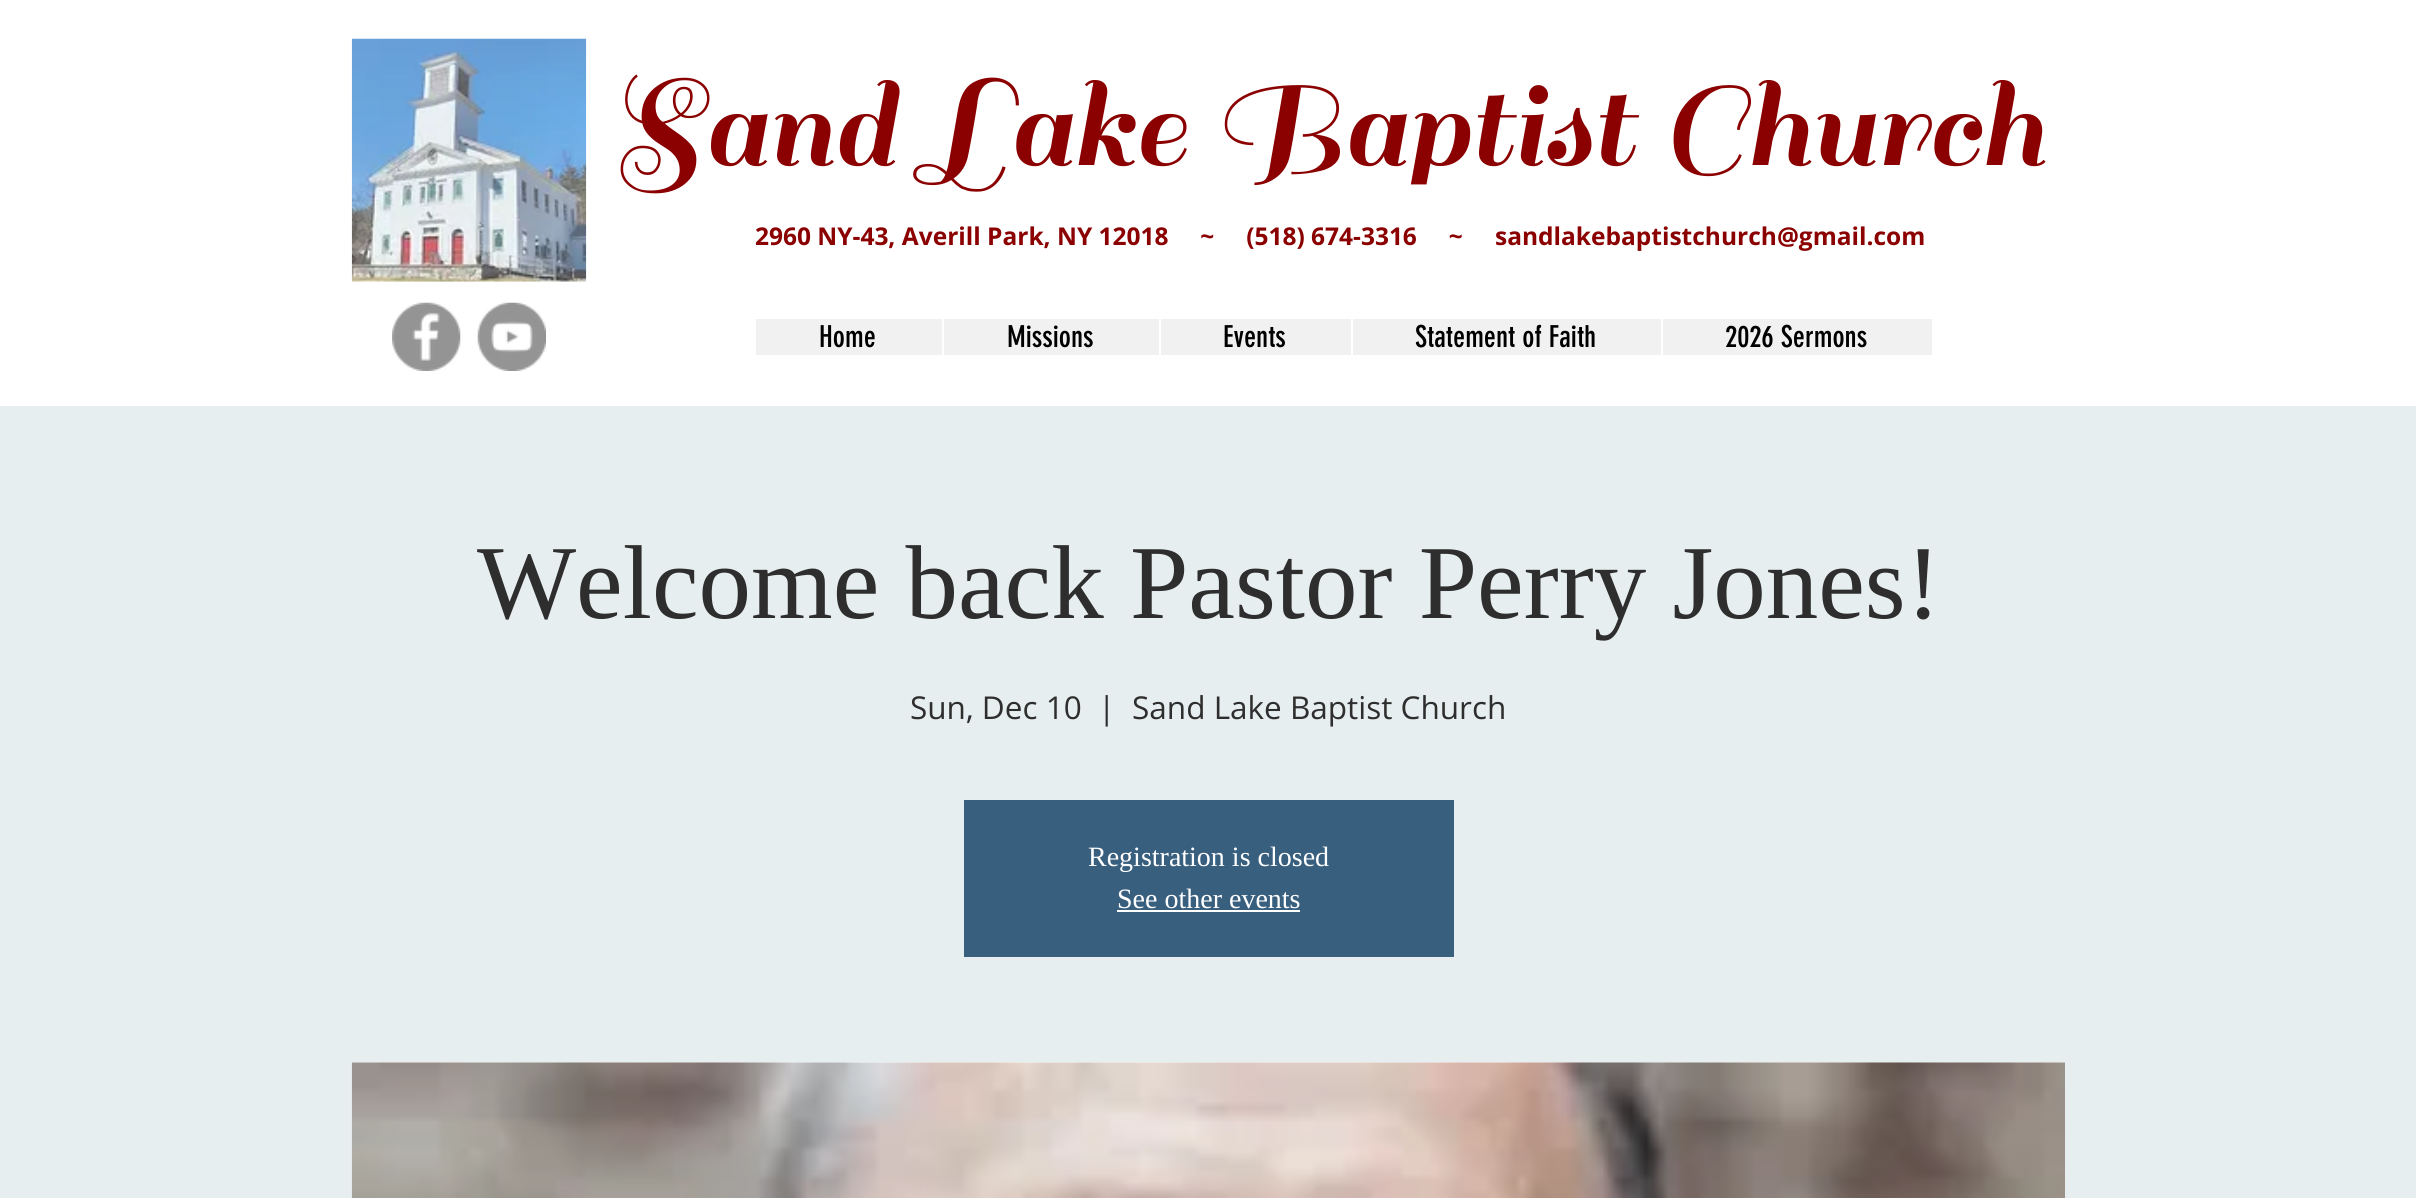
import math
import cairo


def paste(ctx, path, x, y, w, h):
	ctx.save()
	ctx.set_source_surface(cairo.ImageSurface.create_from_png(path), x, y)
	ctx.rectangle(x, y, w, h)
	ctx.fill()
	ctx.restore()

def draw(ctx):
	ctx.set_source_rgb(1, 1, 1)
	ctx.paint()
	paste(ctx, 'media/1.png', 351, 38, 236, 244)
	ctx.select_font_face('Sail')
	ctx.set_font_size(131.25)
	ctx.set_source_rgb(0.545, 0, 0)
	ctx.move_to(610, 165)
	ctx.show_text('Sand Lake Baptist Church')
	ctx.select_font_face('Open Sans', cairo.FONT_SLANT_NORMAL, cairo.FONT_WEIGHT_BOLD)
	ctx.set_font_size(24.5)
	ctx.move_to(755, 245)
	ctx.show_text('2960 NY-43, Averill Park, NY 12018     ~     (518) 674-3316     ~')
	ctx.move_to(1495, 245)
	ctx.show_text('sandlakebaptistchurch@gmail.com')
	paste(ctx, 'media/2.png', 392, 302, 69, 69)
	paste(ctx, 'media/3.png', 477, 302, 69, 69)
	ctx.set_source_rgb(0.945, 0.945, 0.945)
	ctx.rectangle(756, 319, 1176, 36)
	ctx.fill()
	ctx.select_font_face('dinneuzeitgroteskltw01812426')
	ctx.set_font_size(29.75)
	ctx.set_source_rgb(0, 0, 0)
	ctx.move_to(819, 347)
	ctx.show_text('Home')
	ctx.set_source_rgb(1, 1, 1)
	ctx.rectangle(942, 319, 2, 36)
	ctx.fill()
	ctx.set_source_rgb(0, 0, 0)
	ctx.move_to(1007, 347)
	ctx.show_text('Missions')
	ctx.set_source_rgb(1, 1, 1)
	ctx.rectangle(1159, 319, 2, 36)
	ctx.fill()
	ctx.set_source_rgb(0, 0, 0)
	ctx.move_to(1223, 347)
	ctx.show_text('Events')
	ctx.set_source_rgb(1, 1, 1)
	ctx.rectangle(1351, 319, 2, 36)
	ctx.fill()
	ctx.set_source_rgb(0, 0, 0)
	ctx.move_to(1415, 347)
	ctx.show_text('Statement of Faith')
	ctx.set_source_rgb(1, 1, 1)
	ctx.rectangle(1661, 319, 2, 36)
	ctx.fill()
	ctx.set_source_rgb(0, 0, 0)
	ctx.move_to(1725, 347)
	ctx.show_text('2026 Sermons')
	ctx.set_source_rgb(0.906, 0.933, 0.937)
	ctx.rectangle(0, 406, 2416, 792)
	ctx.fill()
	ctx.select_font_face('Liberation Serif')
	ctx.set_font_size(105)
	ctx.set_source_rgb(0.184, 0.18, 0.18)
	ctx.move_to(477, 618)
	ctx.show_text('Welcome back Pastor Perry Jones!')
	ctx.select_font_face('Open Sans')
	ctx.set_font_size(31.5)
	for x, y, s in [
		(910, 719, 'Sun, Dec 10'),
		(1098, 719, '|'),
		(1132, 719, 'Sand Lake Baptist Church'),
	]:
		ctx.move_to(x, y)
		ctx.show_text(s)
	ctx.set_source_rgb(0.224, 0.373, 0.498)
	ctx.rectangle(964, 800, 490, 157)
	ctx.fill()
	ctx.select_font_face('Liberation Serif')
	ctx.set_font_size(28)
	ctx.set_source_rgb(1, 1, 1)
	ctx.move_to(1088, 866)
	ctx.show_text('Registration is closed')
	ctx.move_to(1117, 908)
	ctx.show_text('See other events')
	ctx.rectangle(1117, 910, 183, 2)
	ctx.fill()
	ctx.rectangle(352, 1062, 1713, 1)
	ctx.fill()
	paste(ctx, 'media/4.png', 351, 1062, 1714, 136)


surface = cairo.ImageSurface(cairo.FORMAT_RGB24, 2416, 1198)
ctx = cairo.Context(surface)
options = cairo.FontOptions()
options.set_hint_metrics(cairo.HINT_METRICS_OFF)
options.set_hint_style(cairo.HINT_STYLE_NONE)
ctx.set_font_options(options)
ctx.set_miter_limit(4)
draw(ctx)
surface.write_to_png('image.png')
